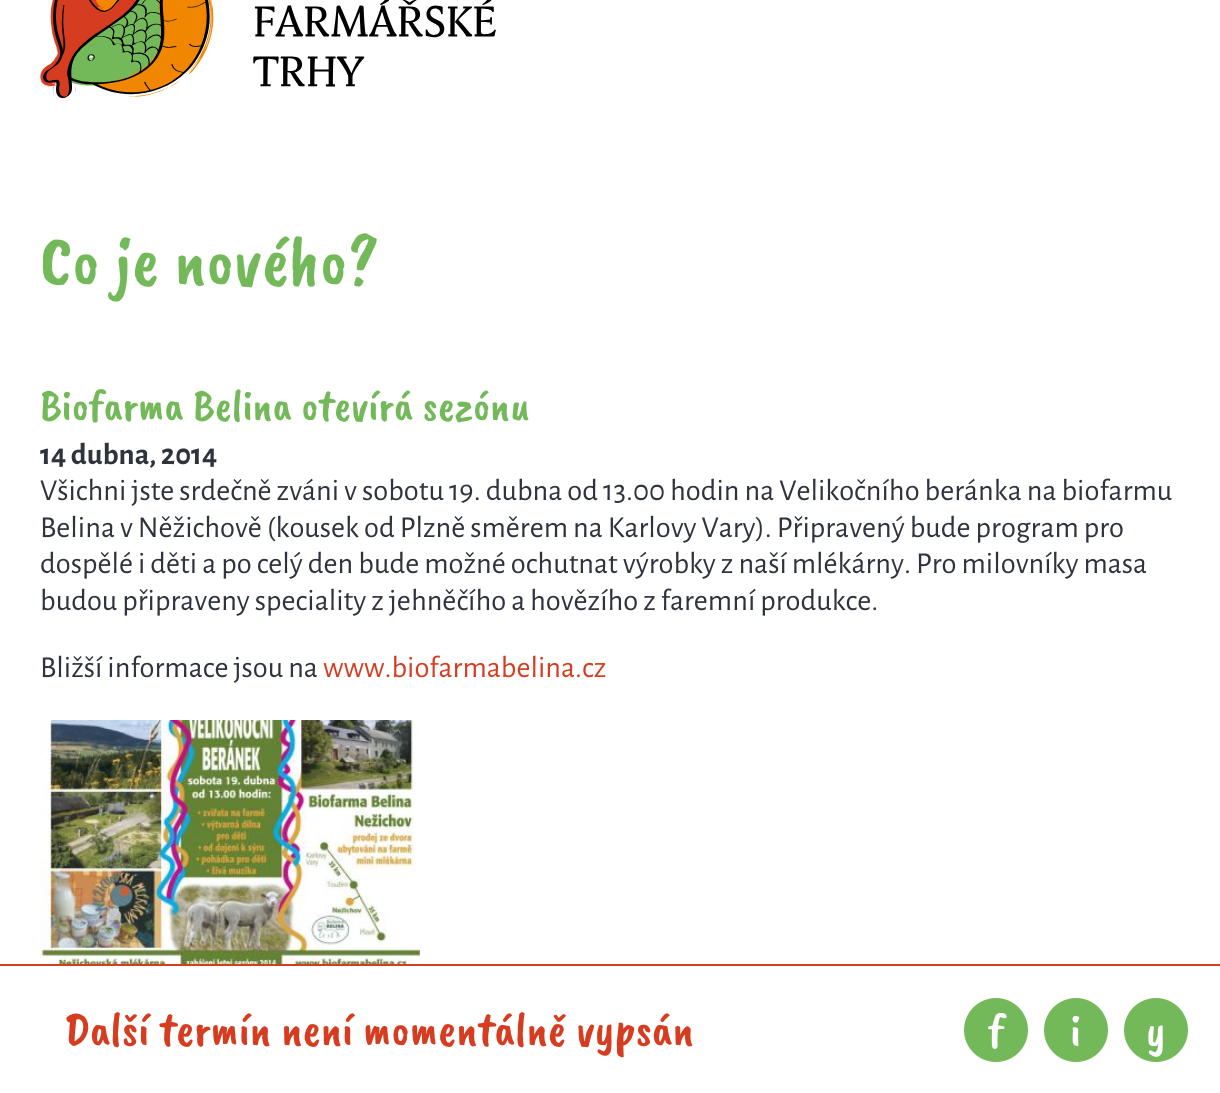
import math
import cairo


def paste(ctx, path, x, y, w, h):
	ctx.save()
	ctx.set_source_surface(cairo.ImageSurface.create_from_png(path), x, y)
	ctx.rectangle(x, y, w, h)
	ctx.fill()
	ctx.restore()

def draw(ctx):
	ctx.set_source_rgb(1, 1, 1)
	ctx.paint()
	paste(ctx, 'media/1.png', 40, 0, 456, 98)
	ctx.select_font_face('Caveat Brush')
	ctx.set_font_size(72)
	ctx.set_source_rgb(0.455, 0.725, 0.349)
	ctx.move_to(40, 284)
	ctx.show_text('Co je nového?')
	ctx.set_font_size(44.75)
	ctx.move_to(40, 420)
	ctx.show_text('Biofarma Belina otevírá sezónu')
	ctx.select_font_face('Alegreya Sans', cairo.FONT_SLANT_NORMAL, cairo.FONT_WEIGHT_BOLD)
	ctx.set_font_size(30.4)
	ctx.set_source_rgb(0.184, 0.2, 0.239)
	ctx.move_to(40, 464)
	ctx.show_text('14 dubna, 2014')
	ctx.select_font_face('Alegreya Sans')
	for x, y, s in [
		(40, 500, 'Všichni jste srdečně zváni v sobotu 19. dubna od 13.00 hodin na Velikočního beránka na biofarmu'),
		(40, 537, 'Belina v Něžichově (kousek od Plzně směrem na Karlovy Vary). Připravený bude program pro'),
		(40, 573, 'dospělé i děti a po celý den bude možné ochutnat výrobky z naší mlékárny. Pro milovníky masa'),
		(40, 610, 'budou připraveny speciality z jehněčího a'),
		(530, 610, 'hovězího z faremní produkce.'),
		(40, 677, 'Bližší informace jsou na'),
	]:
		ctx.move_to(x, y)
		ctx.show_text(s)
	ctx.set_source_rgb(0.839, 0.239, 0.125)
	ctx.move_to(323, 677)
	ctx.show_text('www.biofarmabelina.cz')
	paste(ctx, 'media/2.png', 40, 720, 380, 244)
	ctx.rectangle(0, 964, 1220, 2)
	ctx.fill()
	ctx.select_font_face('Caveat Brush')
	ctx.set_font_size(48)
	ctx.move_to(64, 1045)
	ctx.show_text('Další termín není momentálně vypsán')
	ctx.set_source_rgb(0.455, 0.725, 0.349)
	ctx.new_path()
	ctx.arc(996, 1030, 32, 0, 2 * math.pi)
	ctx.fill()
	ctx.set_source_rgb(1, 1, 1)
	ctx.move_to(988, 1046)
	ctx.show_text('f')
	ctx.set_source_rgb(0.455, 0.725, 0.349)
	ctx.new_path()
	ctx.arc(1076, 1030, 32, 0, 2 * math.pi)
	ctx.fill()
	ctx.set_source_rgb(1, 1, 1)
	ctx.move_to(1070, 1046)
	ctx.show_text('i')
	ctx.set_source_rgb(0.455, 0.725, 0.349)
	ctx.new_path()
	ctx.arc(1156, 1030, 32, 0, 2 * math.pi)
	ctx.fill()
	ctx.set_source_rgb(1, 1, 1)
	ctx.move_to(1146, 1046)
	ctx.show_text('y')


surface = cairo.ImageSurface(cairo.FORMAT_RGB24, 1220, 1093)
ctx = cairo.Context(surface)
options = cairo.FontOptions()
options.set_hint_metrics(cairo.HINT_METRICS_OFF)
options.set_hint_style(cairo.HINT_STYLE_NONE)
ctx.set_font_options(options)
ctx.set_miter_limit(4)
draw(ctx)
surface.write_to_png('image.png')
